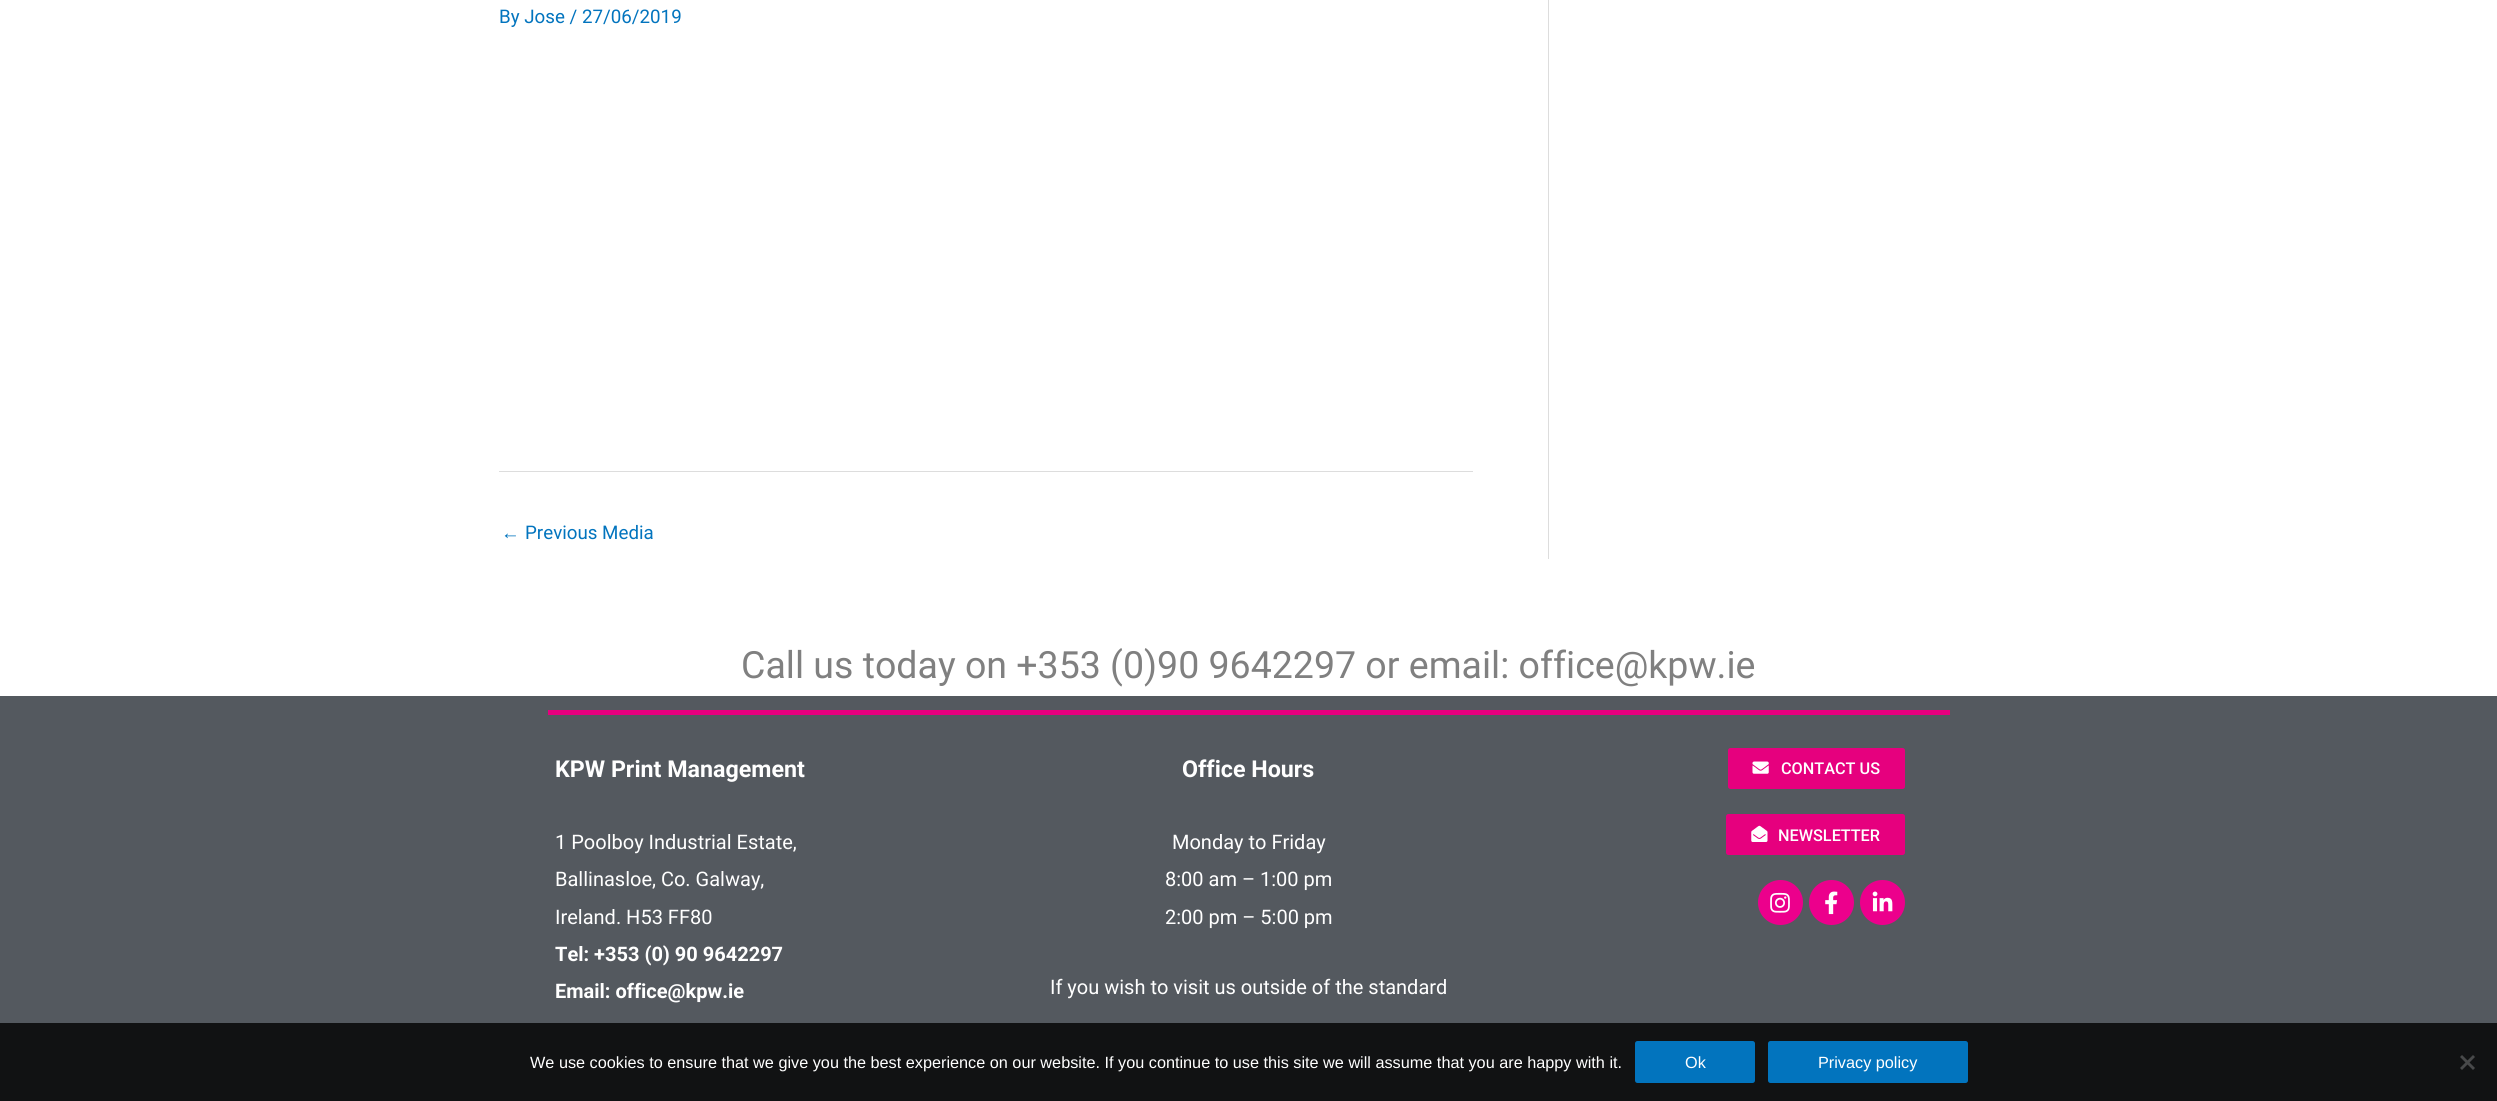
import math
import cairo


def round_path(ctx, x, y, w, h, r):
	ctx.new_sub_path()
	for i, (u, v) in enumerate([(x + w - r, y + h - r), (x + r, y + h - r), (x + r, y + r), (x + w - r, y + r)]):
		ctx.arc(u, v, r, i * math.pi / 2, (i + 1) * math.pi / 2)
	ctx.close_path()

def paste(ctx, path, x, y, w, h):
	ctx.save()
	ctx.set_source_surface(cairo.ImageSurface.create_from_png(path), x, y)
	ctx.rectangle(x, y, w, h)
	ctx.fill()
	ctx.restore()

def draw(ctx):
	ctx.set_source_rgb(1, 1, 1)
	ctx.paint()
	ctx.set_source_rgb(0.867, 0.867, 0.867)
	ctx.rectangle(1548, 0, 1, 559)
	ctx.fill()
	ctx.select_font_face('Roboto')
	ctx.set_font_size(18.75)
	ctx.set_source_rgb(0.008, 0.455, 0.745)
	ctx.move_to(499, 23)
	ctx.show_text('By Jose / 27/06/2019')
	ctx.set_source_rgb(0.867, 0.867, 0.867)
	ctx.rectangle(499, 471, 974, 1)
	ctx.fill()
	ctx.select_font_face('Liberation Sans')
	ctx.set_source_rgb(0.008, 0.455, 0.745)
	ctx.move_to(501, 539)
	ctx.show_text('←')
	ctx.select_font_face('Roboto')
	ctx.move_to(525, 539)
	ctx.show_text('Previous Media')
	ctx.set_font_size(37.5)
	ctx.set_source_rgb(0.502, 0.502, 0.502)
	ctx.move_to(741, 678)
	ctx.show_text('Call us today on +353 (0)90 9642297 or email: office@kpw.ie')
	ctx.set_source_rgb(0.329, 0.349, 0.373)
	ctx.rectangle(0, 696, 2497, 405)
	ctx.fill()
	ctx.set_source_rgb(0.902, 0, 0.494)
	ctx.rectangle(548, 710, 1402, 5)
	ctx.fill()
	ctx.select_font_face('Roboto', cairo.FONT_SLANT_NORMAL, cairo.FONT_WEIGHT_BOLD)
	ctx.set_font_size(23.25)
	ctx.set_source_rgb(1, 1, 1)
	ctx.move_to(555, 777)
	ctx.show_text('KPW Print Management')
	ctx.select_font_face('Roboto')
	ctx.set_font_size(20)
	for x, y, s in [
		(555, 849, '1 Poolboy Industrial Estate,'),
		(555, 886, 'Ballinasloe, Co. Galway,'),
		(555, 924, 'Ireland. H53 FF80'),
	]:
		ctx.move_to(x, y)
		ctx.show_text(s)
	ctx.select_font_face('Roboto', cairo.FONT_SLANT_NORMAL, cairo.FONT_WEIGHT_BOLD)
	ctx.move_to(555, 961)
	ctx.show_text('Tel: +353 (0) 90 9642297')
	ctx.move_to(555, 998)
	ctx.show_text('Email: office@kpw.ie')
	ctx.set_font_size(23.25)
	ctx.move_to(1182, 777)
	ctx.show_text('Office Hours')
	ctx.select_font_face('Roboto')
	ctx.set_font_size(20)
	for x, y, s in [
		(1172, 849, 'Monday to Friday'),
		(1165, 886, '8:00 am – 1:00 pm'),
		(1165, 924, '2:00 pm – 5:00 pm'),
		(1050, 994, 'If you wish to visit us outside of the standard'),
	]:
		ctx.move_to(x, y)
		ctx.show_text(s)
	ctx.set_source_rgb(0.902, 0, 0.494)
	round_path(ctx, 1728, 748, 177, 41, 2.5)
	ctx.fill()
	paste(ctx, 'media/1.png', 1752, 761, 17, 13)
	ctx.select_font_face('Roboto Medium')
	ctx.set_font_size(16.25)
	ctx.set_source_rgb(1, 1, 1)
	ctx.move_to(1781, 774)
	ctx.show_text('CONTACT US')
	ctx.set_source_rgb(0.902, 0, 0.494)
	round_path(ctx, 1726, 814, 179, 41, 2.5)
	ctx.fill()
	paste(ctx, 'media/2.png', 1751, 825, 17, 17)
	ctx.set_source_rgb(1, 1, 1)
	ctx.move_to(1778, 841)
	ctx.show_text('NEWSLETTER')
	ctx.set_source_rgb(0.925, 0, 0.549)
	ctx.new_path()
	ctx.arc(1780.5, 902.5, 22.5, 0, 2 * math.pi)
	ctx.fill()
	paste(ctx, 'media/3.png', 1770, 892, 20, 21)
	ctx.arc(1831.5, 902.5, 22.5, 0, 2 * math.pi)
	ctx.fill()
	paste(ctx, 'media/4.png', 1825, 891, 13, 24)
	ctx.arc(1882.5, 902.5, 22.5, 0, 2 * math.pi)
	ctx.fill()
	paste(ctx, 'media/5.png', 1872, 891, 21, 21)
	ctx.set_source_rgba(0, 0, 0, 0.8)
	ctx.rectangle(0, 1023, 2497, 78)
	ctx.fill()
	ctx.select_font_face('Liberation Sans')
	ctx.set_source_rgb(1, 1, 1)
	ctx.move_to(530, 1068)
	ctx.show_text('We use cookies to ensure that we give you the best experience on our website. If you continue to use this site we will assume that you are happy with it.')
	ctx.set_source_rgb(0.008, 0.455, 0.745)
	round_path(ctx, 1635, 1041, 120, 42, 2.5)
	ctx.fill()
	ctx.set_source_rgb(1, 1, 1)
	ctx.move_to(1685, 1068)
	ctx.show_text('Ok')
	ctx.set_source_rgb(0.008, 0.455, 0.745)
	round_path(ctx, 1768, 1041, 200, 42, 2.5)
	ctx.fill()
	ctx.set_source_rgb(1, 1, 1)
	ctx.move_to(1818, 1068)
	ctx.show_text('Privacy policy')
	ctx.set_source_rgb(0.282, 0.286, 0.29)
	ctx.new_path()
	ctx.move_to(2473, 1055)
	ctx.line_to(2475, 1057)
	ctx.line_to(2462, 1070)
	ctx.line_to(2460, 1068)
	ctx.close_path()
	ctx.fill()
	ctx.new_path()
	ctx.move_to(2460, 1057)
	ctx.line_to(2462, 1055)
	ctx.line_to(2475, 1068)
	ctx.line_to(2473, 1070)
	ctx.close_path()
	ctx.fill()


surface = cairo.ImageSurface(cairo.FORMAT_RGB24, 2497, 1101)
ctx = cairo.Context(surface)
options = cairo.FontOptions()
options.set_hint_metrics(cairo.HINT_METRICS_OFF)
options.set_hint_style(cairo.HINT_STYLE_NONE)
ctx.set_font_options(options)
ctx.set_miter_limit(4)
draw(ctx)
surface.write_to_png('image.png')
